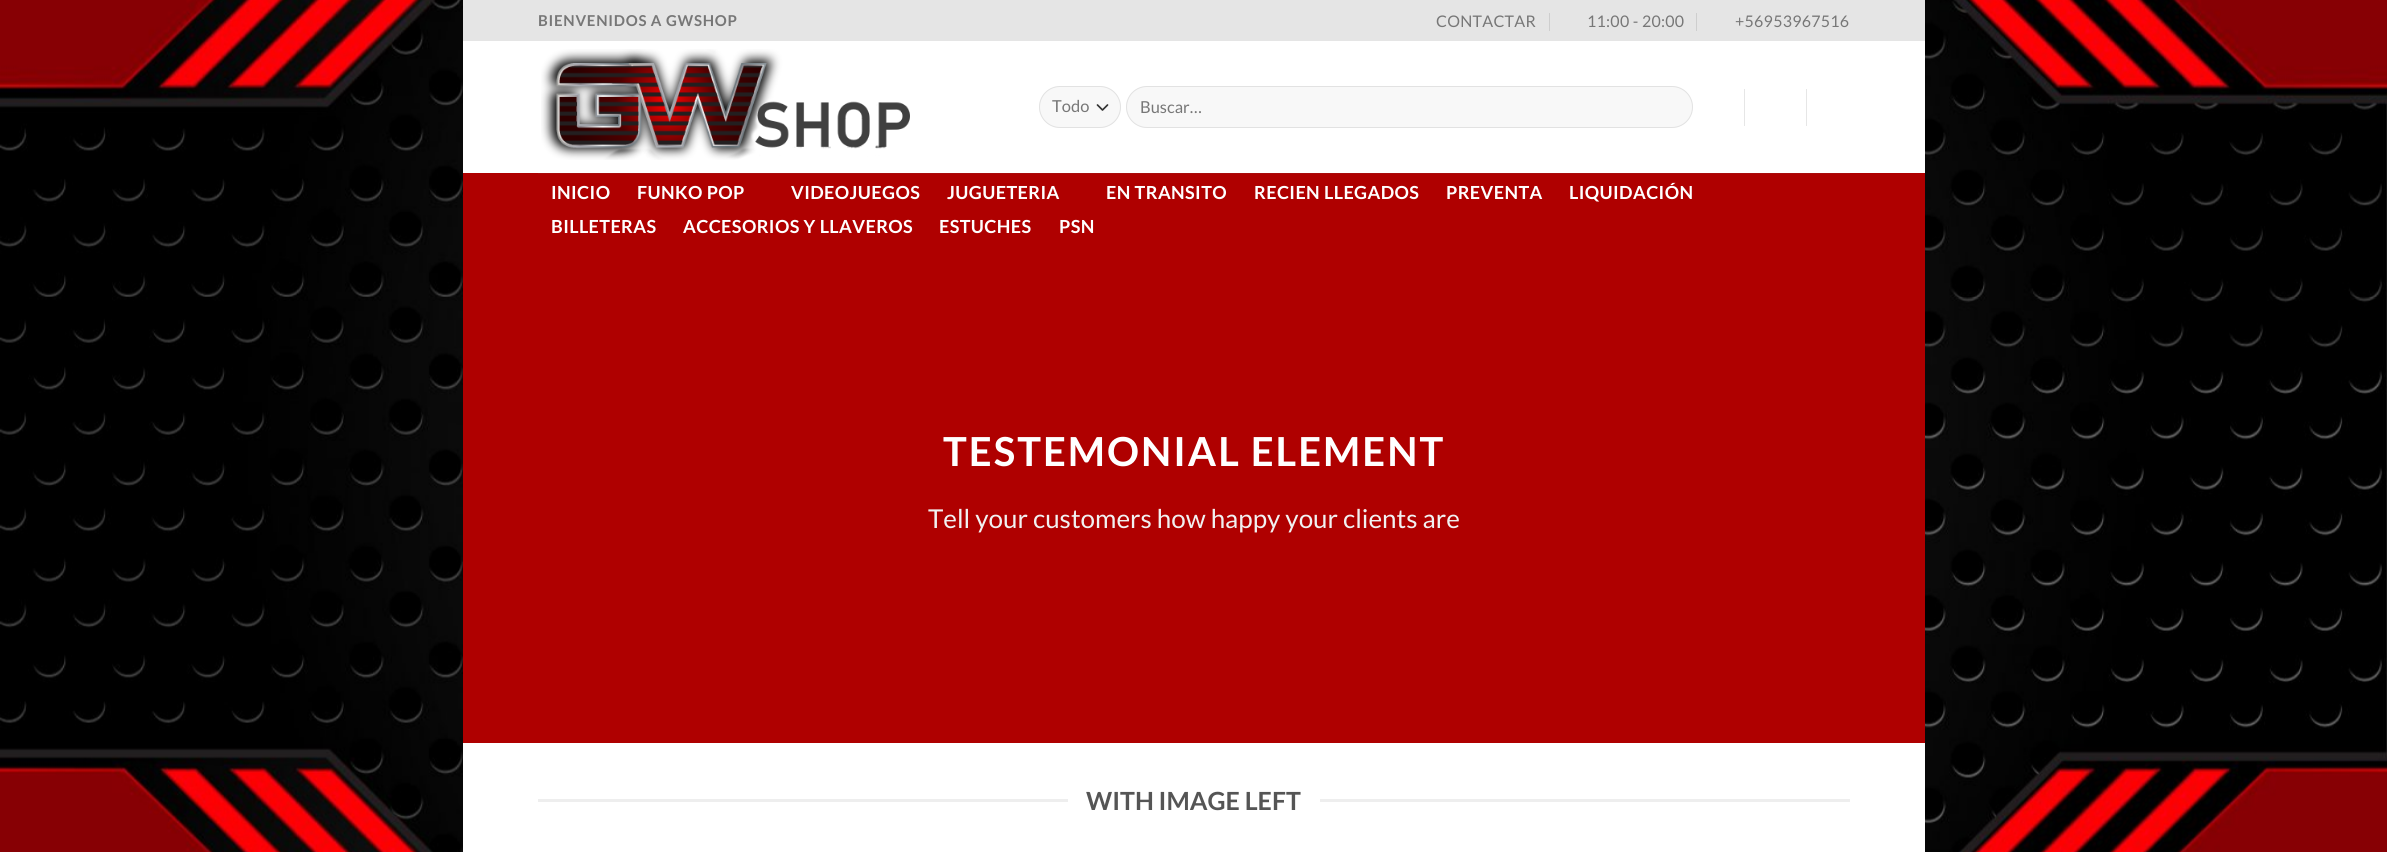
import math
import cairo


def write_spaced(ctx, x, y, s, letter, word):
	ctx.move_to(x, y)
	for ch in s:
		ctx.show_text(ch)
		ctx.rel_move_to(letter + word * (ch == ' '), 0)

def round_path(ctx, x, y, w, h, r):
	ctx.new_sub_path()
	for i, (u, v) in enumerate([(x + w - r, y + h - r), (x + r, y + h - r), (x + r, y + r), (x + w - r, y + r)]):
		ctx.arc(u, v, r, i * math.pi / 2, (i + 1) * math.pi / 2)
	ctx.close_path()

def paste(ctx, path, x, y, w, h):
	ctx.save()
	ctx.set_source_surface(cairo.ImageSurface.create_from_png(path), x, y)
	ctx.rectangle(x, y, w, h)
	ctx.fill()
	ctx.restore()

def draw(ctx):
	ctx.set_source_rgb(1, 1, 1)
	ctx.paint()
	paste(ctx, 'media/1.png', 0, 0, 2387, 852)
	ctx.set_source_rgb(1, 1, 1)
	ctx.rectangle(463, 41, 1462, 811)
	ctx.fill()
	ctx.set_source_rgb(0.898, 0.898, 0.898)
	ctx.rectangle(463, 0, 1462, 41)
	ctx.fill()
	ctx.select_font_face('Lato', cairo.FONT_SLANT_NORMAL, cairo.FONT_WEIGHT_BOLD)
	ctx.set_font_size(15)
	ctx.set_source_rgb(0.467, 0.467, 0.467)
	write_spaced(ctx, 538, 26, 'BIENVENIDOS A GWSHOP', 0.75, 0)
	ctx.select_font_face('Lato')
	ctx.set_font_size(16)
	write_spaced(ctx, 1436, 27, 'CONTACTAR', 0.25, 0)
	ctx.set_source_rgb(0.808, 0.808, 0.808)
	ctx.rectangle(1549, 13, 1, 18)
	ctx.fill()
	ctx.set_source_rgb(0.467, 0.467, 0.467)
	write_spaced(ctx, 1587, 27, '11:00 - 20:00', 0.25, 0)
	ctx.set_source_rgb(0.808, 0.808, 0.808)
	ctx.rectangle(1696, 13, 1, 18)
	ctx.fill()
	ctx.set_source_rgb(0.467, 0.467, 0.467)
	write_spaced(ctx, 1735, 27, '+56953967516', 0.25, 0)
	paste(ctx, 'media/2.png', 541, 49, 369, 111)
	ctx.set_source_rgb(0.969, 0.969, 0.969)
	round_path(ctx, 1039, 86, 82, 42, 21)
	ctx.fill()
	ctx.new_path()
	ctx.move_to(1097.5, 105)
	ctx.line_to(1102.5, 110)
	ctx.line_to(1107.5, 105)
	ctx.set_source_rgb(0.2, 0.2, 0.2)
	ctx.set_line_width(1.7)
	ctx.set_line_cap(cairo.LINE_CAP_ROUND)
	ctx.set_line_join(cairo.LINE_JOIN_ROUND)
	ctx.stroke()
	round_path(ctx, 1039.5, 86.5, 81, 41, 20.5)
	ctx.set_source_rgba(0, 0, 0, 0.09)
	ctx.set_line_width(1)
	ctx.set_line_cap(cairo.LINE_CAP_BUTT)
	ctx.set_line_join(cairo.LINE_JOIN_MITER)
	ctx.stroke()
	ctx.set_font_size(16.5)
	ctx.set_source_rgb(0.467, 0.467, 0.467)
	ctx.move_to(1052, 112)
	ctx.show_text('Todo')
	ctx.set_source_rgb(0.969, 0.969, 0.969)
	round_path(ctx, 1126, 86, 567, 42, 21)
	ctx.fill()
	round_path(ctx, 1126.5, 86.5, 566, 41, 20.5)
	ctx.set_source_rgba(0, 0, 0, 0.09)
	ctx.stroke()
	ctx.set_source_rgb(0.467, 0.467, 0.467)
	ctx.move_to(1140, 113)
	ctx.show_text('Buscar…')
	ctx.set_source_rgb(0.902, 0.902, 0.902)
	ctx.rectangle(1744, 89, 1, 37)
	ctx.rectangle(1806, 89, 1, 37)
	ctx.fill()
	ctx.set_source_rgb(0.686, 0, 0)
	ctx.rectangle(463, 173, 1462, 570)
	ctx.fill()
	ctx.set_source_rgb(0.663, 0.047, 0.047)
	ctx.rectangle(538, 173, 1312, 1)
	ctx.fill()
	ctx.select_font_face('Lato', cairo.FONT_SLANT_NORMAL, cairo.FONT_WEIGHT_BOLD)
	ctx.set_font_size(18)
	ctx.set_source_rgb(1, 1, 1)
	for x, y, s in [
		(551, 199, 'INICIO'),
		(637, 199, 'FUNKO POP'),
		(791, 199, 'VIDEOJUEGOS'),
		(947, 199, 'JUGUETERIA'),
		(1106, 199, 'EN TRANSITO'),
		(1254, 199, 'RECIEN LLEGADOS'),
		(1446, 199, 'PREVENTA'),
		(1569, 199, 'LIQUIDACIÓN'),
		(551, 233, 'BILLETERAS'),
		(683, 233, 'ACCESORIOS Y LLAVEROS'),
		(939, 233, 'ESTUCHES'),
		(1059, 233, 'PSN'),
	]:
		write_spaced(ctx, x, y, s, 0.4, 0)
	ctx.set_font_size(40)
	write_spaced(ctx, 943, 466, 'TESTEMONIAL ELEMENT', 2, 0)
	ctx.select_font_face('Lato')
	ctx.set_font_size(26)
	ctx.set_source_rgb(0.945, 0.945, 0.945)
	ctx.move_to(928, 528)
	ctx.show_text('Tell your customers how happy your clients are')
	ctx.set_source_rgb(0.933, 0.933, 0.933)
	ctx.rectangle(538, 799, 530, 3)
	ctx.fill()
	ctx.select_font_face('Lato', cairo.FONT_SLANT_NORMAL, cairo.FONT_WEIGHT_BOLD)
	ctx.set_font_size(25)
	ctx.set_source_rgb(0.333, 0.333, 0.333)
	ctx.move_to(1086, 810)
	ctx.show_text('WITH IMAGE LEFT')
	ctx.set_source_rgb(0.933, 0.933, 0.933)
	ctx.rectangle(1320, 799, 530, 3)
	ctx.fill()


surface = cairo.ImageSurface(cairo.FORMAT_RGB24, 2387, 852)
ctx = cairo.Context(surface)
options = cairo.FontOptions()
options.set_hint_metrics(cairo.HINT_METRICS_OFF)
options.set_hint_style(cairo.HINT_STYLE_NONE)
ctx.set_font_options(options)
ctx.set_miter_limit(4)
draw(ctx)
surface.write_to_png('image.png')
